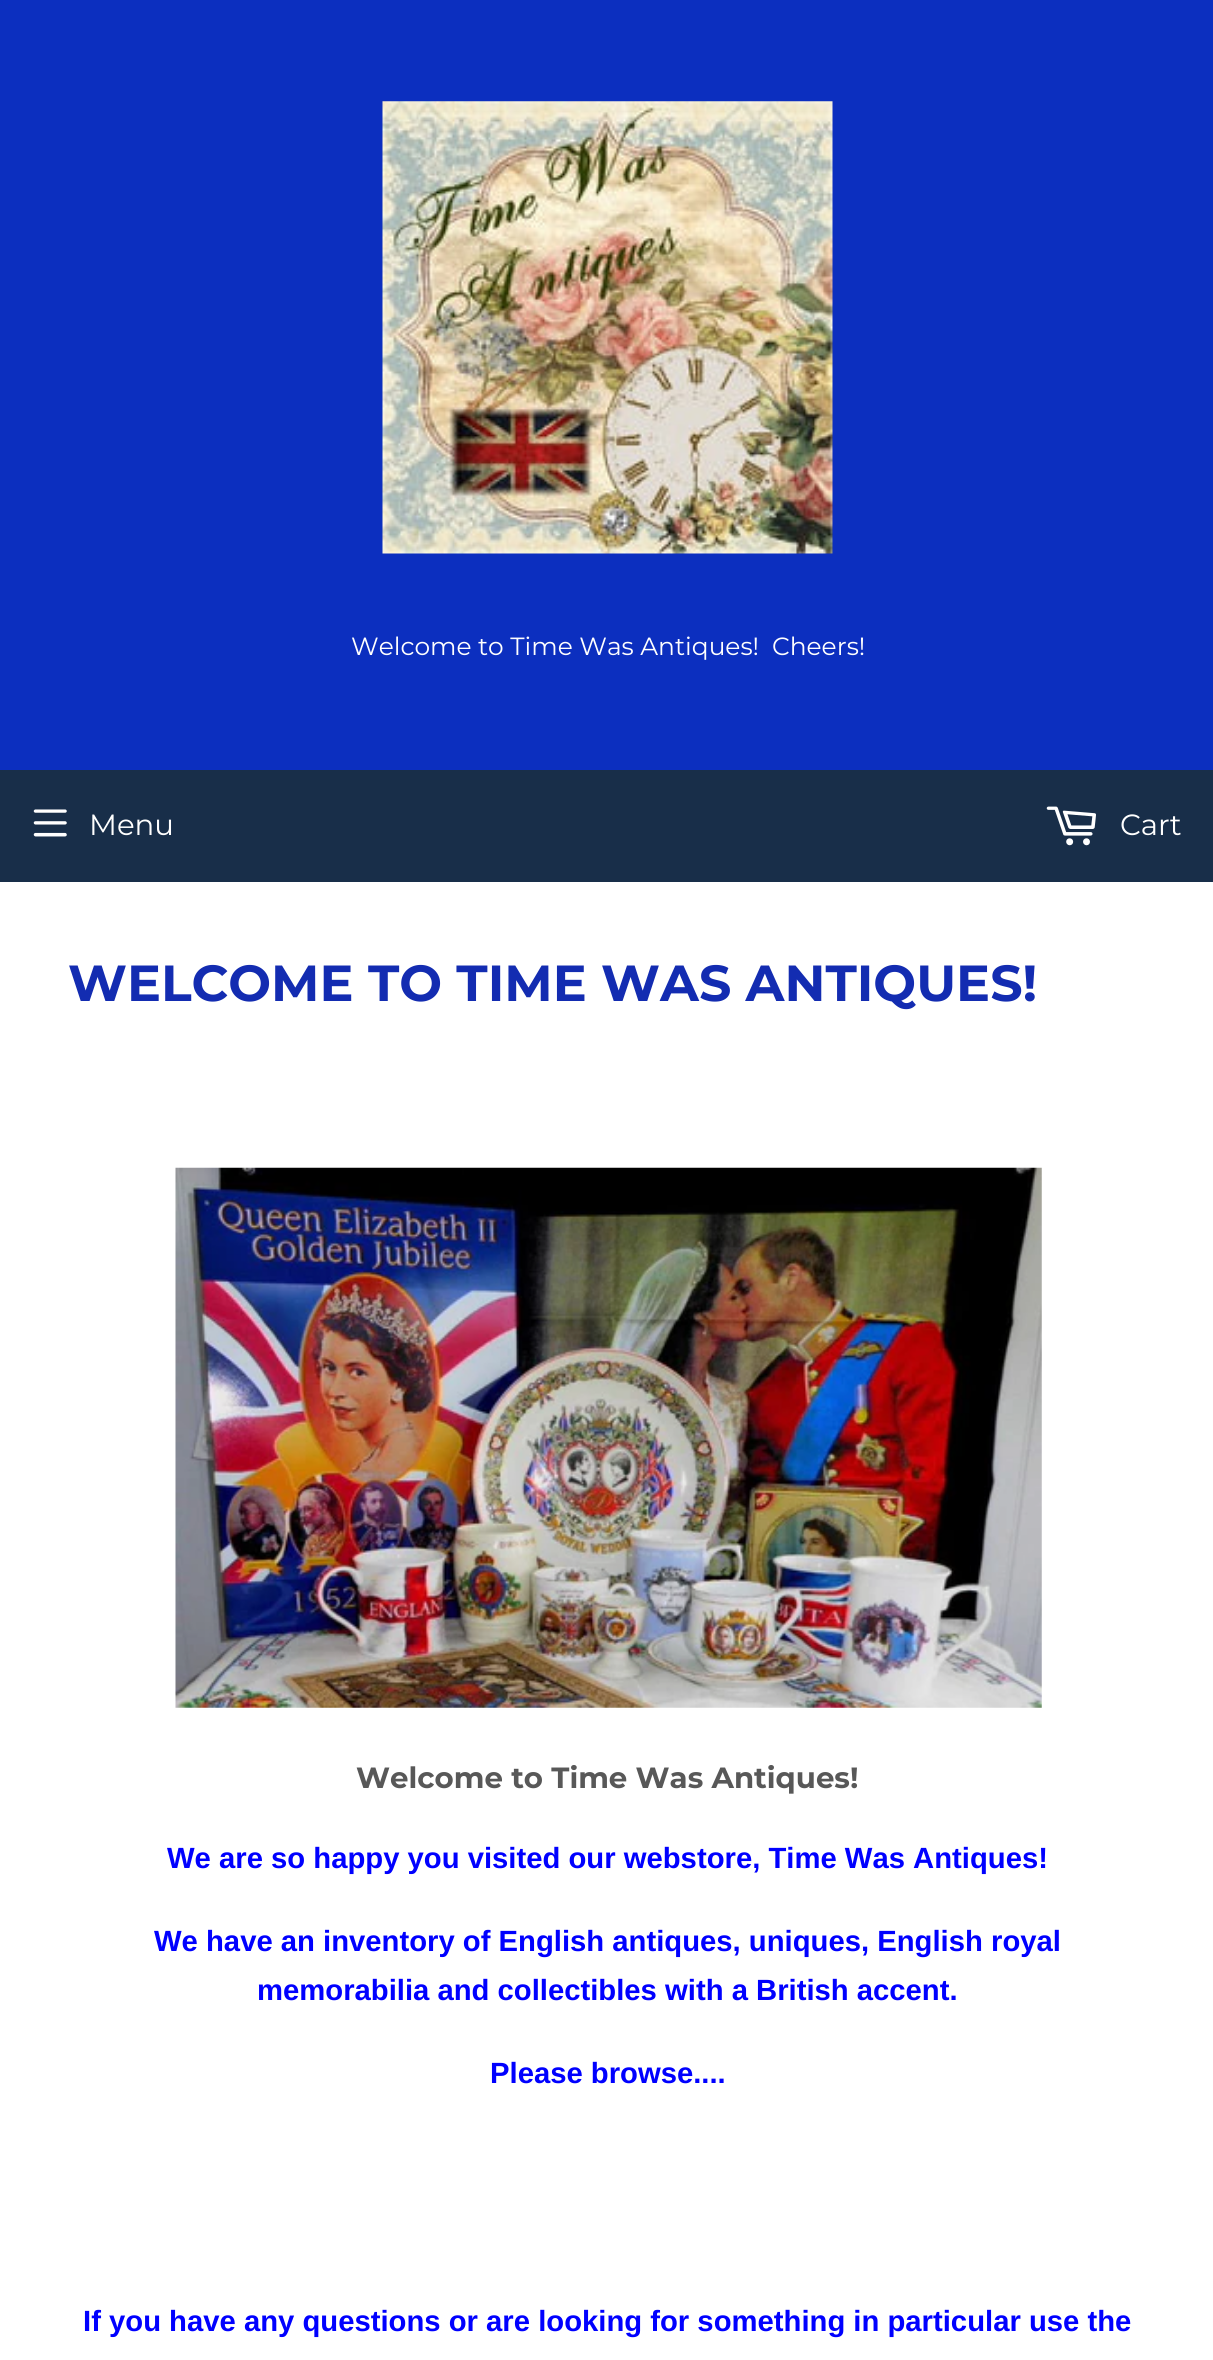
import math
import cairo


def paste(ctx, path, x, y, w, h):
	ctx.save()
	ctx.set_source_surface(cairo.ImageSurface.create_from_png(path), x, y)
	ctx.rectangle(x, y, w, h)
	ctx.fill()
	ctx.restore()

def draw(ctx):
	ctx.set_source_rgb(1, 1, 1)
	ctx.paint()
	ctx.set_source_rgb(0.047, 0.184, 0.749)
	ctx.rectangle(0, 0, 1213, 770)
	ctx.fill()
	paste(ctx, 'media/1.png', 382, 101, 451, 453)
	ctx.select_font_face('Montserrat')
	ctx.set_font_size(24.9)
	ctx.set_source_rgb(1, 1, 1)
	ctx.move_to(351, 655)
	ctx.show_text('Welcome to Time Was Antiques!  Cheers!')
	ctx.set_source_rgb(0.094, 0.18, 0.286)
	ctx.rectangle(0, 770, 1213, 112)
	ctx.fill()
	paste(ctx, 'media/2.png', 33, 809, 34, 28)
	ctx.set_font_size(29.25)
	ctx.set_source_rgb(1, 1, 1)
	ctx.move_to(89, 835)
	ctx.show_text('Menu')
	paste(ctx, 'media/3.png', 1046, 806, 50, 40)
	ctx.move_to(1120, 835)
	ctx.show_text('Cart')
	ctx.select_font_face('Montserrat', cairo.FONT_SLANT_NORMAL, cairo.FONT_WEIGHT_BOLD)
	ctx.set_font_size(50.7)
	ctx.set_source_rgb(0.078, 0.173, 0.694)
	ctx.move_to(68, 1001)
	ctx.show_text('WELCOME TO TIME WAS ANTIQUES!')
	paste(ctx, 'media/4.png', 175, 1167, 867, 541)
	ctx.set_font_size(29.25)
	ctx.set_source_rgb(0.345, 0.345, 0.345)
	ctx.move_to(356, 1788)
	ctx.show_text('Welcome to Time Was Antiques!')
	ctx.select_font_face('Liberation Sans', cairo.FONT_SLANT_NORMAL, cairo.FONT_WEIGHT_BOLD)
	ctx.set_source_rgb(0, 0, 1)
	for x, y, s in [
		(167, 1868, 'We are so happy you visited our webstore, Time Was Antiques!'),
		(154, 1951, 'We have an inventory of English antiques, uniques, English royal'),
		(257, 2000, 'memorabilia and collectibles with a British accent.'),
		(490, 2083, 'Please browse....'),
		(83, 2331, 'If you have any questions or are looking for something in particular use the'),
	]:
		ctx.move_to(x, y)
		ctx.show_text(s)


surface = cairo.ImageSurface(cairo.FORMAT_RGB24, 1213, 2360)
ctx = cairo.Context(surface)
options = cairo.FontOptions()
options.set_hint_metrics(cairo.HINT_METRICS_OFF)
options.set_hint_style(cairo.HINT_STYLE_NONE)
ctx.set_font_options(options)
ctx.set_miter_limit(4)
draw(ctx)
surface.write_to_png('image.png')
